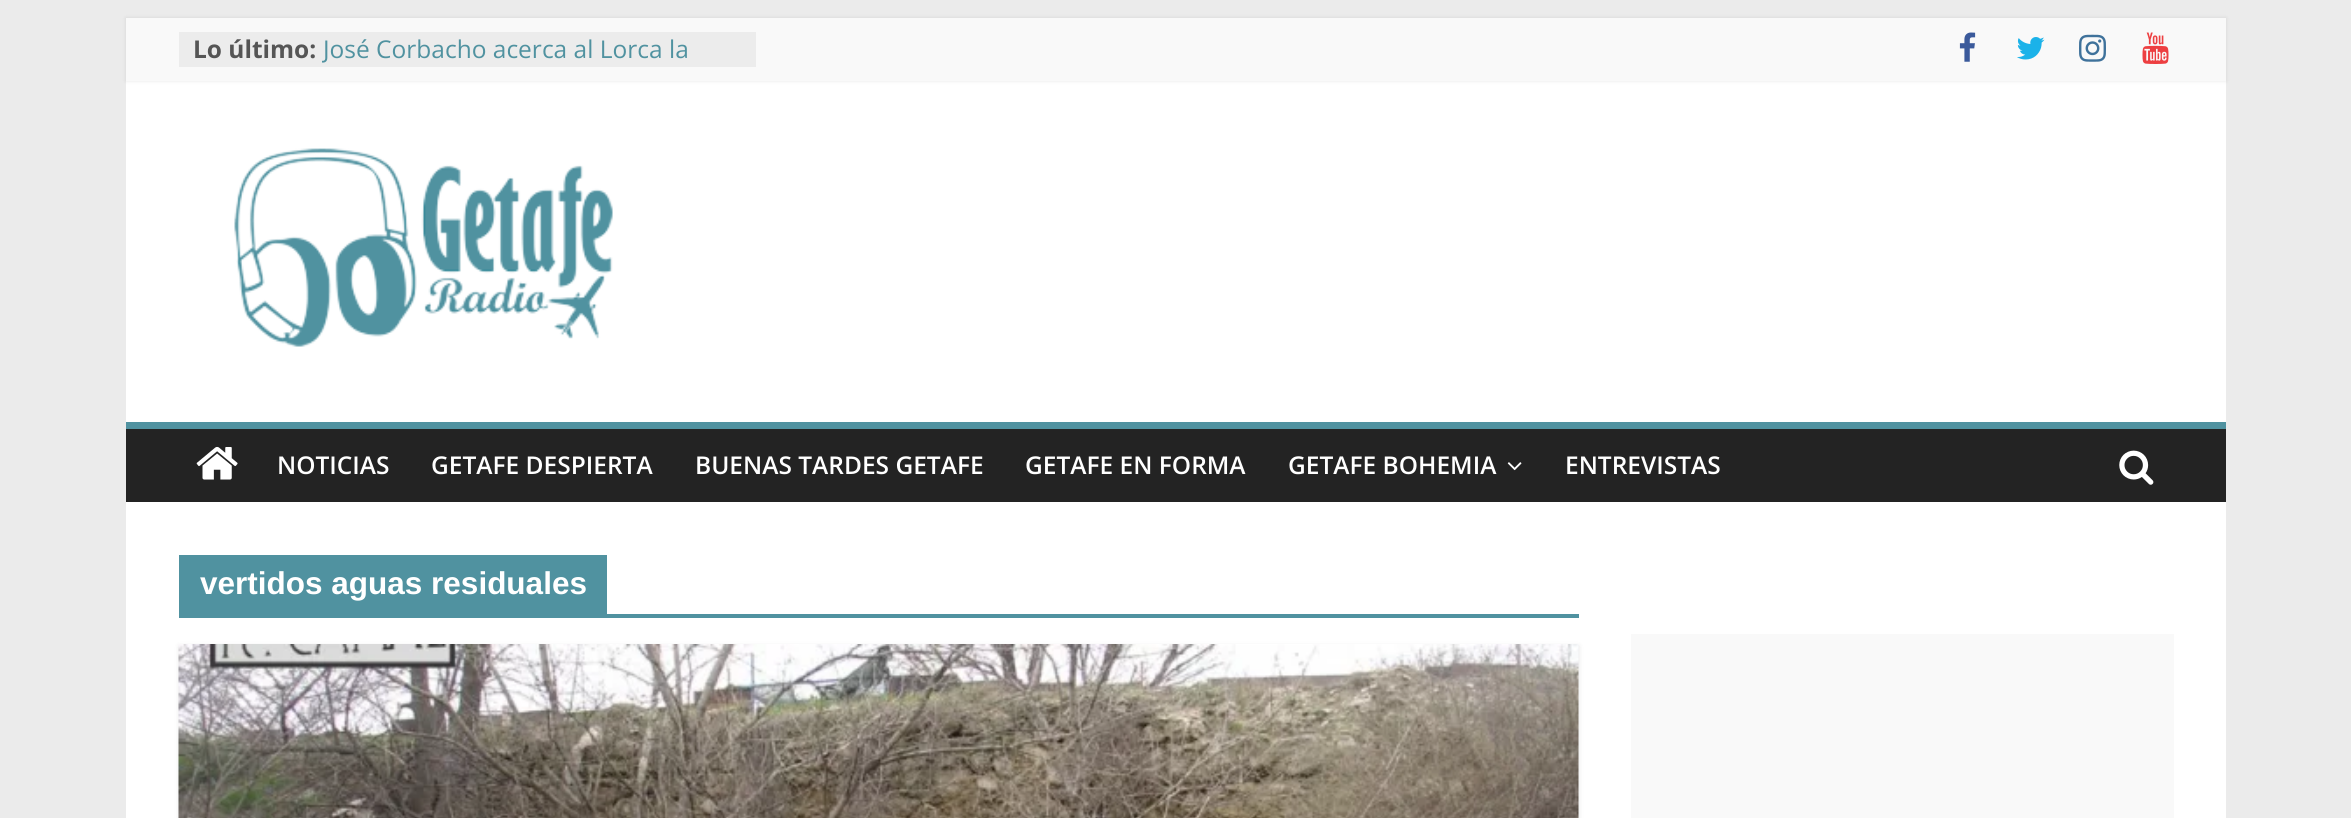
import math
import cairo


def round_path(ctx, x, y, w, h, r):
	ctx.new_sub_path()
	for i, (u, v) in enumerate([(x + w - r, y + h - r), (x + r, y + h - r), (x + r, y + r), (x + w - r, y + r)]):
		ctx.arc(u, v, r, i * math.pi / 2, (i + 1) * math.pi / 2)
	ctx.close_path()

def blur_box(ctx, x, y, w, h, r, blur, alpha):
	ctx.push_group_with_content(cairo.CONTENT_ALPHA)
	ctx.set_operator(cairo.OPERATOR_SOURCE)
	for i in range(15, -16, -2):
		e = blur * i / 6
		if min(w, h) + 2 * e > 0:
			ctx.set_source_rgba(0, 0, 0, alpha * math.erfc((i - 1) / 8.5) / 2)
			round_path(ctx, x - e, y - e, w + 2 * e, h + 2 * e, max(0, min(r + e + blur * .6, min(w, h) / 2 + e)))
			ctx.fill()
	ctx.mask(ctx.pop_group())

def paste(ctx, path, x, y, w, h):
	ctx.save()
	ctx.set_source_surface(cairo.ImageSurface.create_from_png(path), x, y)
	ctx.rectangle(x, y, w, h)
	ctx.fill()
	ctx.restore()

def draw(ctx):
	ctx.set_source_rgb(0.918, 0.918, 0.918)
	ctx.paint()
	ctx.set_source_rgb(1, 1, 1)
	ctx.rectangle(126, 81, 2100, 341)
	ctx.fill()
	ctx.set_source_rgb(0, 0, 0)
	blur_box(ctx, 126, 18, 2100, 63, 0, 2, 0.1)
	ctx.set_source_rgb(0.973, 0.973, 0.973)
	ctx.rectangle(126, 18, 2100, 63)
	ctx.fill()
	ctx.set_source_rgb(0.922, 0.922, 0.925)
	ctx.rectangle(179, 32, 577, 35)
	ctx.fill()
	ctx.select_font_face('Open Sans', cairo.FONT_SLANT_NORMAL, cairo.FONT_WEIGHT_BOLD)
	ctx.set_font_size(24.5)
	ctx.set_source_rgb(0.333, 0.333, 0.333)
	ctx.move_to(193, 58)
	ctx.show_text('Lo último:')
	ctx.save()
	ctx.rectangle(322, 32, 420, 35)
	ctx.clip()
	ctx.select_font_face('Open Sans')
	ctx.set_source_rgb(0.314, 0.573, 0.627)
	ctx.move_to(323, 58)
	ctx.show_text('José Corbacho acerca al Lorca la')
	ctx.restore()
	paste(ctx, 'media/1.png', 1959, 32, 17, 30)
	paste(ctx, 'media/2.png', 2017, 37, 28, 23)
	paste(ctx, 'media/3.png', 2079, 34, 27, 28)
	paste(ctx, 'media/4.png', 2142, 32, 27, 32)
	paste(ctx, 'media/5.png', 234, 148, 379, 199)
	ctx.set_source_rgb(0.137, 0.137, 0.137)
	ctx.rectangle(126, 429, 2100, 73)
	ctx.fill()
	ctx.set_source_rgb(0.314, 0.573, 0.627)
	ctx.rectangle(126, 422, 2100, 7)
	ctx.fill()
	paste(ctx, 'media/6.png', 196, 446, 42, 34)
	ctx.select_font_face('Open Sans SemiBold')
	ctx.set_source_rgb(1, 1, 1)
	for x, y, s in [
		(277, 474, 'NOTICIAS'),
		(431, 474, 'GETAFE DESPIERTA'),
		(695, 474, 'BUENAS TARDES GETAFE'),
		(1025, 474, 'GETAFE EN FORMA'),
		(1288, 474, 'GETAFE BOHEMIA'),
	]:
		ctx.move_to(x, y)
		ctx.show_text(s)
	paste(ctx, 'media/7.png', 1507, 462, 15, 9)
	ctx.move_to(1565, 474)
	ctx.show_text('ENTREVISTAS')
	paste(ctx, 'media/8.png', 2119, 450, 35, 35)
	ctx.rectangle(126, 502, 2100, 316)
	ctx.fill()
	ctx.set_source_rgb(0.314, 0.573, 0.627)
	ctx.rectangle(179, 614, 1400, 4)
	ctx.rectangle(179, 555, 428, 59)
	ctx.fill()
	ctx.select_font_face('Liberation Sans', cairo.FONT_SLANT_NORMAL, cairo.FONT_WEIGHT_BOLD)
	ctx.set_font_size(31.5)
	ctx.set_source_rgb(1, 1, 1)
	ctx.move_to(200, 594)
	ctx.show_text('vertidos aguas residuales')
	ctx.set_source_rgb(0, 0, 0)
	blur_box(ctx, 179, 646, 1400, 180, 0, 2.5, 0.1)
	paste(ctx, 'media/9.png', 178, 644, 1401, 174)
	ctx.set_source_rgb(0.973, 0.973, 0.973)
	ctx.rectangle(1631, 634, 543, 184)
	ctx.fill()


surface = cairo.ImageSurface(cairo.FORMAT_RGB24, 2351, 818)
ctx = cairo.Context(surface)
options = cairo.FontOptions()
options.set_hint_metrics(cairo.HINT_METRICS_OFF)
options.set_hint_style(cairo.HINT_STYLE_NONE)
ctx.set_font_options(options)
ctx.set_miter_limit(4)
draw(ctx)
surface.write_to_png('image.png')
